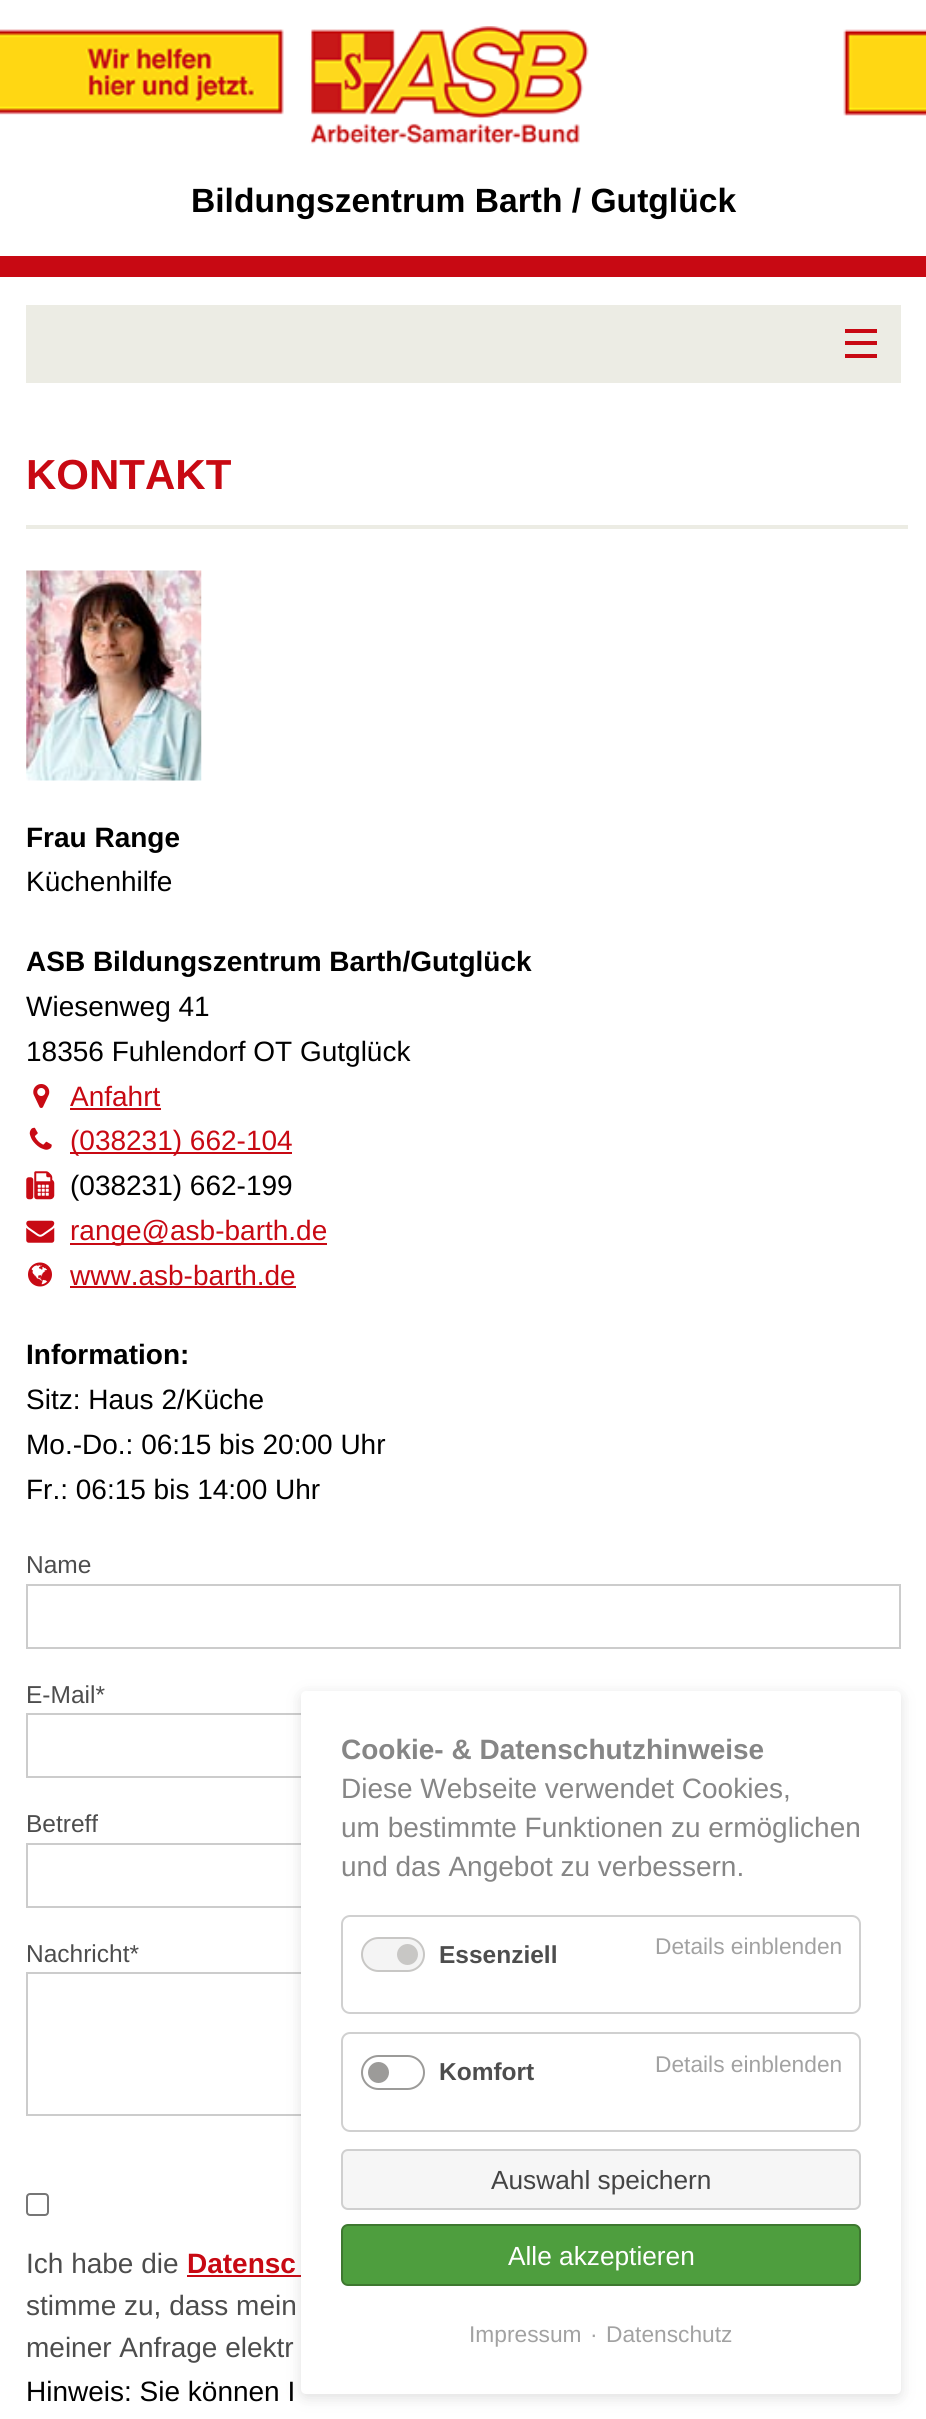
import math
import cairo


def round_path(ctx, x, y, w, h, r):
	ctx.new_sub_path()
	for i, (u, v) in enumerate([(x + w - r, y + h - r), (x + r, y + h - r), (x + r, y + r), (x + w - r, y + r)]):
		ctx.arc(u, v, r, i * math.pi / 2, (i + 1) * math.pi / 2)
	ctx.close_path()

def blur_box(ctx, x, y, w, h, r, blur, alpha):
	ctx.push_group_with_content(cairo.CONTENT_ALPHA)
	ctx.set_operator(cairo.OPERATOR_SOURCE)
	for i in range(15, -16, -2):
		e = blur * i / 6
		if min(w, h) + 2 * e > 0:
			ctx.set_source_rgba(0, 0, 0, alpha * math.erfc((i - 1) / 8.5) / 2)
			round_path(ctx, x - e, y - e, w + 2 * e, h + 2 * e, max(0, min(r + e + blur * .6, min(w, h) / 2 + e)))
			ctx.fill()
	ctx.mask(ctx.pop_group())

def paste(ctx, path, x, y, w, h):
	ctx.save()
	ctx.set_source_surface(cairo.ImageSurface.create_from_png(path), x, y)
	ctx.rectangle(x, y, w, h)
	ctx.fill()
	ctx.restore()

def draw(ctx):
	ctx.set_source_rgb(1, 1, 1)
	ctx.paint()
	ctx.set_source_rgb(0.784, 0.039, 0.078)
	ctx.rectangle(0, 256, 926, 21)
	ctx.fill()
	paste(ctx, 'media/1.png', 0, 26, 589, 118)
	paste(ctx, 'media/2.png', 843, 29, 83, 87)
	ctx.select_font_face('Liberation Sans', cairo.FONT_SLANT_NORMAL, cairo.FONT_WEIGHT_BOLD)
	ctx.set_font_size(33.6)
	ctx.set_source_rgb(0, 0, 0)
	ctx.move_to(191, 212)
	ctx.show_text('Bildungszentrum Barth / Gutglück')
	ctx.set_source_rgb(0.922, 0.922, 0.894)
	ctx.rectangle(26, 305, 875, 78)
	ctx.fill()
	ctx.set_source_rgb(0.784, 0.039, 0.078)
	ctx.rectangle(845, 354, 32, 4)
	ctx.rectangle(845, 341, 32, 4)
	ctx.rectangle(845, 329, 32, 4)
	ctx.fill()
	ctx.set_font_size(42)
	ctx.move_to(26, 489)
	ctx.show_text('KONTAKT')
	ctx.set_source_rgb(0.922, 0.922, 0.894)
	ctx.rectangle(26, 525, 882, 4)
	ctx.fill()
	paste(ctx, 'media/3.png', 26, 570, 176, 211)
	ctx.set_font_size(28)
	ctx.set_source_rgb(0, 0, 0)
	ctx.move_to(26, 847)
	ctx.show_text('Frau Range')
	ctx.select_font_face('Liberation Sans')
	ctx.move_to(26, 891)
	ctx.show_text('Küchenhilfe')
	ctx.select_font_face('Liberation Sans', cairo.FONT_SLANT_NORMAL, cairo.FONT_WEIGHT_BOLD)
	ctx.move_to(26, 971)
	ctx.show_text('ASB Bildungszentrum Barth/Gutglück')
	ctx.select_font_face('Liberation Sans')
	ctx.move_to(26, 1016)
	ctx.show_text('Wiesenweg 41')
	ctx.move_to(26, 1061)
	ctx.show_text('18356 Fuhlendorf OT Gutglück')
	paste(ctx, 'media/4.png', 33, 1084, 17, 24)
	ctx.set_source_rgb(0.784, 0.039, 0.078)
	ctx.move_to(70, 1106)
	ctx.show_text('Anfahrt')
	ctx.rectangle(70, 1108, 91, 2)
	ctx.fill()
	paste(ctx, 'media/5.png', 29, 1127, 23, 23)
	ctx.rectangle(70, 1152, 222, 2)
	ctx.fill()
	ctx.move_to(70, 1150)
	ctx.show_text('(038231) 662-104')
	paste(ctx, 'media/6.png', 26, 1171, 29, 29)
	ctx.set_source_rgb(0, 0, 0)
	ctx.move_to(70, 1195)
	ctx.show_text('(038231) 662-199')
	paste(ctx, 'media/7.png', 26, 1220, 29, 23)
	ctx.set_source_rgb(0.784, 0.039, 0.078)
	ctx.rectangle(70, 1243, 257, 2)
	ctx.fill()
	ctx.move_to(70, 1240)
	ctx.show_text('range@asb-barth.de')
	paste(ctx, 'media/8.png', 28, 1262, 24, 25)
	ctx.move_to(70, 1285)
	ctx.show_text('www.asb-barth.de')
	ctx.rectangle(70, 1286, 226, 2)
	ctx.fill()
	ctx.select_font_face('Liberation Sans', cairo.FONT_SLANT_NORMAL, cairo.FONT_WEIGHT_BOLD)
	ctx.set_source_rgb(0, 0, 0)
	ctx.move_to(26, 1364)
	ctx.show_text('Information:')
	ctx.select_font_face('Liberation Sans')
	for x, y, s in [
		(26, 1409, 'Sitz: Haus 2/Küche'),
		(26, 1454, 'Mo.-Do.: 06:15 bis 20:00 Uhr'),
		(26, 1499, 'Fr.: 06:15 bis 14:00 Uhr'),
	]:
		ctx.move_to(x, y)
		ctx.show_text(s)
	ctx.set_font_size(24.5)
	ctx.set_source_rgb(0.302, 0.302, 0.302)
	ctx.move_to(26, 1573)
	ctx.show_text('Name')
	ctx.rectangle(27, 1585, 873, 63)
	ctx.set_source_rgb(0.8, 0.8, 0.8)
	ctx.stroke()
	ctx.set_source_rgb(0.302, 0.302, 0.302)
	ctx.move_to(26, 1703)
	ctx.show_text('E-Mail*')
	ctx.rectangle(27, 1714, 873, 63)
	ctx.set_source_rgb(0.8, 0.8, 0.8)
	ctx.stroke()
	ctx.set_source_rgb(0.302, 0.302, 0.302)
	ctx.move_to(26, 1832)
	ctx.show_text('Betreff')
	ctx.rectangle(27, 1844, 873, 63)
	ctx.set_source_rgb(0.8, 0.8, 0.8)
	ctx.stroke()
	ctx.set_source_rgb(0.302, 0.302, 0.302)
	ctx.move_to(26, 1962)
	ctx.show_text('Nachricht*')
	ctx.rectangle(27, 1973, 873, 142)
	ctx.set_source_rgb(0.8, 0.8, 0.8)
	ctx.stroke()
	round_path(ctx, 27, 2194, 21, 21, 3)
	ctx.set_source_rgb(0.463, 0.463, 0.463)
	ctx.stroke()
	ctx.set_font_size(28)
	ctx.set_source_rgb(0.302, 0.302, 0.302)
	ctx.move_to(26, 2273)
	ctx.show_text('Ich habe die')
	ctx.select_font_face('Liberation Sans', cairo.FONT_SLANT_NORMAL, cairo.FONT_WEIGHT_BOLD)
	ctx.set_source_rgb(0.784, 0.039, 0.078)
	ctx.move_to(187, 2273)
	ctx.show_text('Datensc')
	ctx.rectangle(187, 2275, 114, 2)
	ctx.fill()
	ctx.select_font_face('Liberation Sans')
	ctx.set_source_rgb(0.302, 0.302, 0.302)
	ctx.move_to(26, 2315)
	ctx.show_text('stimme zu, dass mein')
	ctx.move_to(26, 2357)
	ctx.show_text('meiner Anfrage elektr')
	ctx.set_source_rgb(0, 0, 0)
	ctx.move_to(26, 2401)
	ctx.show_text('Hinweis: Sie können I')
	ctx.set_source_rgb(0.388, 0.388, 0.388)
	blur_box(ctx, 301, 1694, 600, 704, 5, 7, 0.2)
	ctx.set_source_rgb(1, 1, 1)
	round_path(ctx, 301, 1691, 600, 703, 5)
	ctx.fill()
	ctx.select_font_face('Liberation Sans', cairo.FONT_SLANT_NORMAL, cairo.FONT_WEIGHT_BOLD)
	ctx.set_source_rgb(0.525, 0.525, 0.525)
	ctx.move_to(341, 1759)
	ctx.show_text('Cookie- & Datenschutzhinweise')
	ctx.select_font_face('Liberation Sans')
	for x, y, s in [
		(341, 1798, 'Diese Webseite verwendet Cookies,'),
		(341, 1837, 'um bestimmte Funktionen zu ermöglichen'),
		(341, 1876, 'und das Angebot zu verbessern.'),
	]:
		ctx.move_to(x, y)
		ctx.show_text(s)
	round_path(ctx, 342, 1916, 518, 97, 8)
	ctx.set_source_rgb(0.816, 0.816, 0.816)
	ctx.stroke()
	ctx.set_source_rgb(0.957, 0.957, 0.957)
	round_path(ctx, 362, 1938, 62, 33, 16.5)
	ctx.fill_preserve()
	ctx.set_source_rgb(0.784, 0.78, 0.773)
	ctx.stroke()
	ctx.arc(407.5, 1954.5, 10.5, 0, 2 * math.pi)
	ctx.fill()
	ctx.select_font_face('Liberation Sans', cairo.FONT_SLANT_NORMAL, cairo.FONT_WEIGHT_BOLD)
	ctx.set_font_size(24.5)
	ctx.set_source_rgb(0.302, 0.302, 0.302)
	ctx.move_to(439, 1963)
	ctx.show_text('Essenziell')
	ctx.select_font_face('Liberation Sans')
	ctx.set_font_size(22.75)
	ctx.set_source_rgb(0.635, 0.635, 0.635)
	ctx.move_to(655, 1954)
	ctx.show_text('Details einblenden')
	round_path(ctx, 342, 2033, 518, 98, 8)
	ctx.set_source_rgb(0.816, 0.816, 0.816)
	ctx.stroke()
	round_path(ctx, 362, 2056, 62, 33, 16.5)
	ctx.set_source_rgb(0.612, 0.608, 0.6)
	ctx.stroke()
	ctx.arc(378.5, 2072.5, 10.5, 0, 2 * math.pi)
	ctx.fill()
	ctx.select_font_face('Liberation Sans', cairo.FONT_SLANT_NORMAL, cairo.FONT_WEIGHT_BOLD)
	ctx.set_font_size(24.5)
	ctx.set_source_rgb(0.302, 0.302, 0.302)
	ctx.move_to(439, 2080)
	ctx.show_text('Komfort')
	ctx.select_font_face('Liberation Sans')
	ctx.set_font_size(22.75)
	ctx.set_source_rgb(0.635, 0.635, 0.635)
	ctx.move_to(655, 2072)
	ctx.show_text('Details einblenden')
	ctx.set_source_rgb(0.961, 0.961, 0.961)
	round_path(ctx, 342, 2150, 518, 59, 6)
	ctx.fill_preserve()
	ctx.set_source_rgb(0.812, 0.812, 0.812)
	ctx.stroke()
	ctx.set_font_size(26.25)
	ctx.set_source_rgb(0.267, 0.267, 0.267)
	ctx.move_to(491, 2189)
	ctx.show_text('Auswahl speichern')
	ctx.set_source_rgb(0.306, 0.62, 0.243)
	round_path(ctx, 342, 2225, 518, 60, 6)
	ctx.fill_preserve()
	ctx.set_source_rgb(0.243, 0.471, 0.188)
	ctx.stroke()
	ctx.set_source_rgb(1, 1, 1)
	ctx.move_to(508, 2265)
	ctx.show_text('Alle akzeptieren')
	ctx.set_font_size(22.75)
	ctx.set_source_rgb(0.635, 0.635, 0.635)
	for x, y, s in [
		(469, 2342, 'Impressum'),
		(590, 2342, '·'),
		(606, 2342, 'Datenschutz'),
	]:
		ctx.move_to(x, y)
		ctx.show_text(s)


surface = cairo.ImageSurface(cairo.FORMAT_RGB24, 926, 2419)
ctx = cairo.Context(surface)
options = cairo.FontOptions()
options.set_hint_metrics(cairo.HINT_METRICS_OFF)
options.set_hint_style(cairo.HINT_STYLE_NONE)
ctx.set_font_options(options)
ctx.set_miter_limit(4)
draw(ctx)
surface.write_to_png('image.png')
